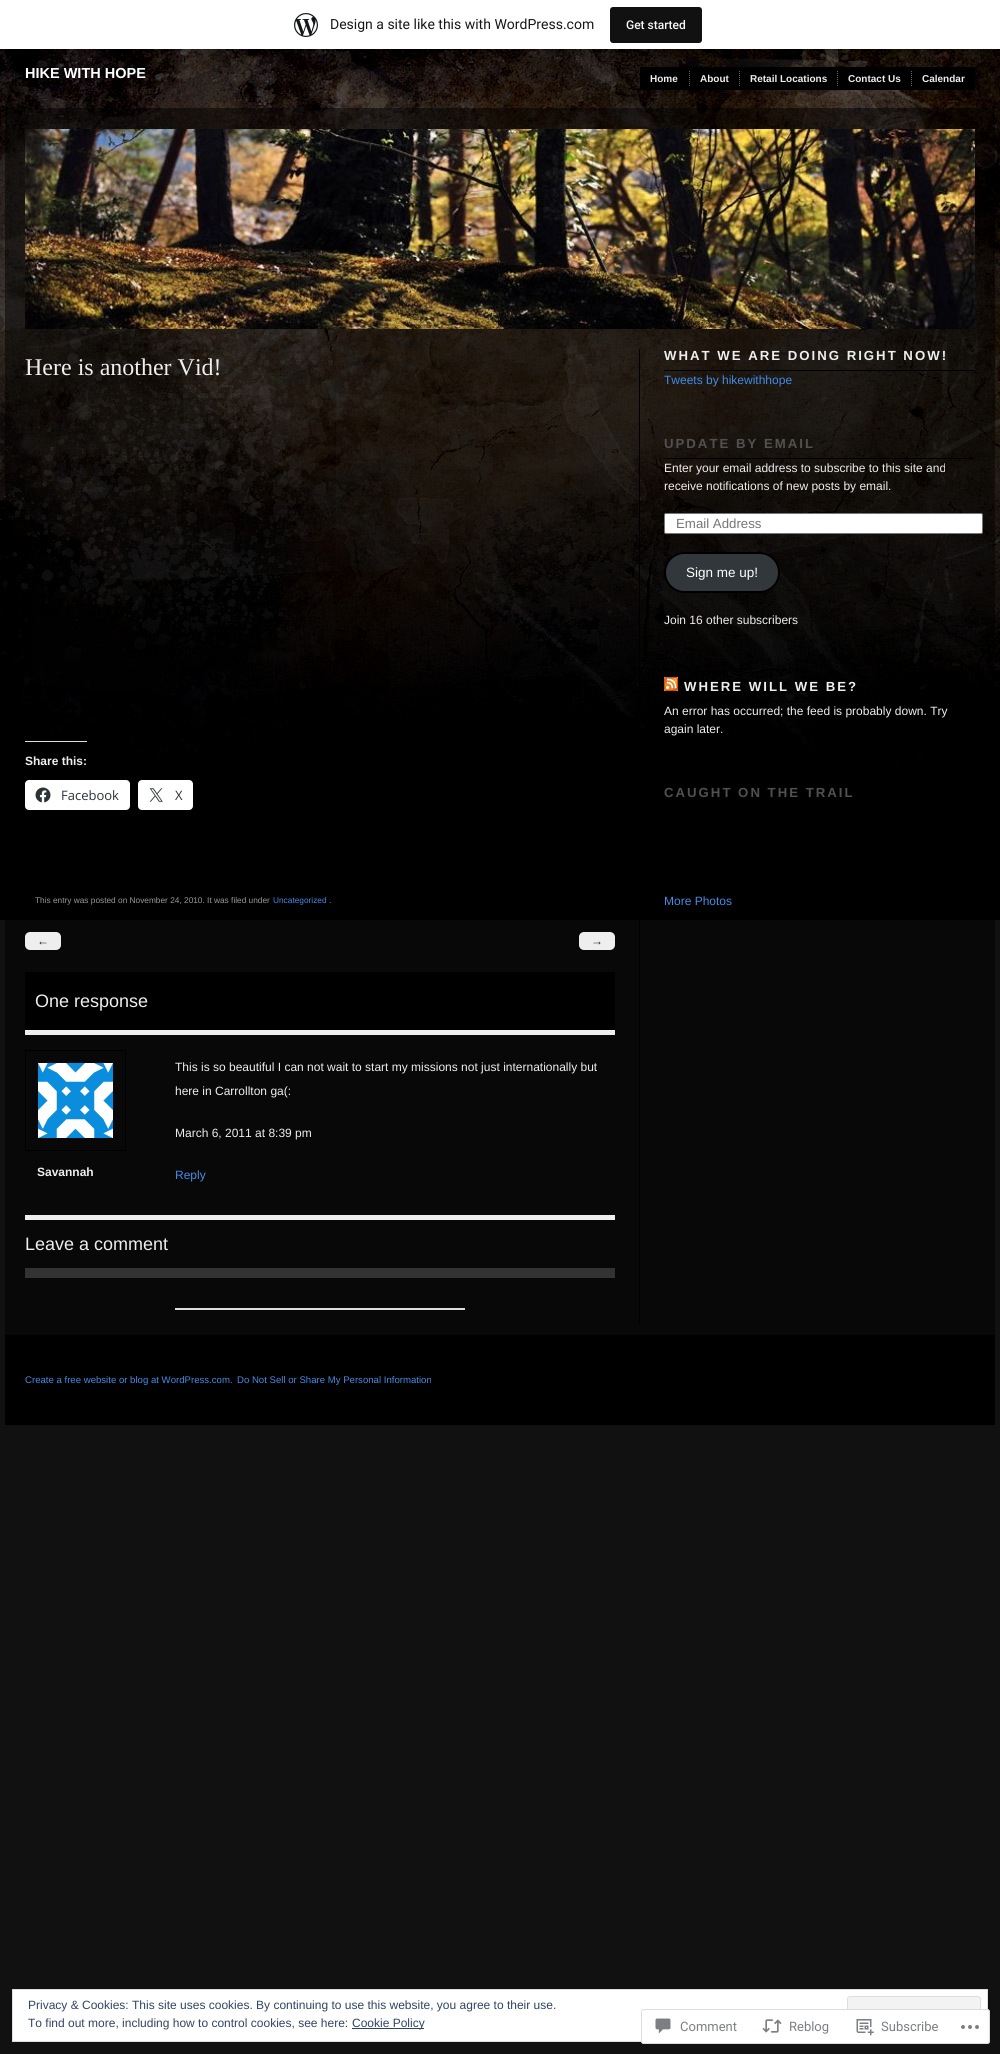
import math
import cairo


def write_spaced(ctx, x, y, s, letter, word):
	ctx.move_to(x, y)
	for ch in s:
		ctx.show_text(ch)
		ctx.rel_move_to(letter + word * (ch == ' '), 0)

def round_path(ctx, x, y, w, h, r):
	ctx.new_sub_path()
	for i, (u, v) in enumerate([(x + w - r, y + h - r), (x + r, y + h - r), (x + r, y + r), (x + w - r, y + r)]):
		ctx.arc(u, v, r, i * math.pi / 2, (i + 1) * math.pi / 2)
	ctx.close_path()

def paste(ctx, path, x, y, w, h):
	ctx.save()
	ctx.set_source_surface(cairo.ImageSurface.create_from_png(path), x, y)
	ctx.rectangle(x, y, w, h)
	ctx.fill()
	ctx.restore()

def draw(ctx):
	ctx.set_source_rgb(0.067, 0.067, 0.067)
	ctx.paint()
	paste(ctx, 'media/1.png', 0, 49, 1000, 871)
	ctx.set_source_rgba(0, 0, 0, 0.5)
	ctx.rectangle(5, 108, 990, 1227)
	ctx.fill()
	ctx.set_source_rgba(0, 0, 0, 0.08)
	ctx.new_path()
	ctx.move_to(1, 49)
	ctx.line_to(1, 52)
	ctx.line_to(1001, 52)
	ctx.line_to(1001, 3)
	ctx.line_to(1000, 3)
	ctx.line_to(1000, 49)
	ctx.close_path()
	ctx.fill()
	ctx.set_source_rgb(1, 1, 1)
	ctx.rectangle(0, 0, 1000, 49)
	ctx.fill()
	paste(ctx, 'media/2.png', 294, 13, 24, 24)
	ctx.select_font_face('Roboto')
	ctx.set_font_size(14)
	ctx.set_source_rgb(0.09, 0.09, 0.09)
	ctx.move_to(330, 29)
	ctx.show_text('Design a site like this with WordPress.com')
	ctx.set_source_rgb(0.067, 0.067, 0.067)
	round_path(ctx, 610, 7, 92, 36, 3)
	ctx.fill()
	ctx.select_font_face('Roboto Medium')
	ctx.set_font_size(12)
	ctx.set_source_rgb(0.965, 0.969, 0.969)
	ctx.move_to(626, 29)
	ctx.show_text('Get started')
	paste(ctx, 'media/3.png', 25, 129, 950, 200)
	ctx.set_source_rgb(0, 0, 0)
	ctx.rectangle(639, 349, 1, 974)
	ctx.fill()
	ctx.select_font_face('Liberation Serif')
	ctx.set_font_size(24)
	ctx.set_source_rgb(0.933, 0.933, 0.933)
	ctx.move_to(25, 375)
	ctx.show_text('Here is another Vid!')
	ctx.set_source_rgb(0.863, 0.863, 0.871)
	ctx.rectangle(25, 741, 62, 1)
	ctx.fill()
	ctx.select_font_face('Liberation Sans', cairo.FONT_SLANT_NORMAL, cairo.FONT_WEIGHT_BOLD)
	ctx.set_font_size(12)
	ctx.set_source_rgb(0.933, 0.933, 0.933)
	ctx.move_to(25, 765)
	ctx.show_text('Share this:')
	ctx.set_source_rgb(1, 1, 1)
	round_path(ctx, 25, 780, 105, 30, 4)
	ctx.fill()
	paste(ctx, 'media/4.png', 35, 787, 16, 16)
	ctx.select_font_face('Open Sans')
	ctx.set_font_size(13)
	ctx.set_source_rgb(0.173, 0.2, 0.22)
	ctx.move_to(61, 800)
	ctx.show_text('Facebook')
	ctx.set_source_rgb(1, 1, 1)
	round_path(ctx, 138, 780, 55, 30, 4)
	ctx.fill()
	paste(ctx, 'media/5.png', 149, 788, 14, 14)
	ctx.set_source_rgb(0.173, 0.2, 0.22)
	ctx.move_to(175, 800)
	ctx.show_text('X')
	ctx.select_font_face('Liberation Sans')
	ctx.set_font_size(8.3)
	ctx.set_source_rgb(0.6, 0.6, 0.6)
	ctx.move_to(35, 903)
	ctx.show_text('This entry was posted on November 24, 2010. It was filed under')
	ctx.set_source_rgb(0.259, 0.549, 0.906)
	ctx.move_to(273, 903)
	ctx.show_text('Uncategorized')
	ctx.set_source_rgb(0.6, 0.6, 0.6)
	ctx.move_to(329, 903)
	ctx.show_text('.')
	ctx.set_source_rgb(0.933, 0.933, 0.933)
	round_path(ctx, 25, 932, 36, 18, 5)
	ctx.fill()
	ctx.set_font_size(12)
	ctx.set_source_rgb(0.133, 0.133, 0.133)
	ctx.move_to(37, 945)
	ctx.show_text('←')
	ctx.set_source_rgb(0.933, 0.933, 0.933)
	round_path(ctx, 579, 932, 36, 18, 5)
	ctx.fill()
	ctx.set_source_rgb(0.133, 0.133, 0.133)
	ctx.move_to(591, 945)
	ctx.show_text('→')
	ctx.set_source_rgb(0, 0, 0)
	ctx.rectangle(25, 972, 590, 58)
	ctx.fill()
	ctx.set_font_size(18)
	ctx.set_source_rgb(0.933, 0.933, 0.933)
	ctx.move_to(35, 1007)
	ctx.show_text('One response')
	ctx.rectangle(25, 1215, 590, 5)
	ctx.fill()
	ctx.rectangle(25, 1030, 590, 5)
	ctx.fill()
	ctx.rectangle(25.5, 1050.5, 100, 100)
	ctx.set_source_rgb(0, 0, 0)
	ctx.set_line_width(1)
	ctx.stroke()
	paste(ctx, 'media/6.png', 38, 1063, 75, 75)
	ctx.select_font_face('Liberation Sans', cairo.FONT_SLANT_NORMAL, cairo.FONT_WEIGHT_BOLD)
	ctx.set_font_size(12)
	ctx.set_source_rgb(0.933, 0.933, 0.933)
	ctx.move_to(37, 1176)
	ctx.show_text('Savannah')
	ctx.select_font_face('Liberation Sans')
	for x, y, s in [
		(175, 1071, 'This is so beautiful I can not wait to start my missions not just internationally but'),
		(175, 1095, 'here in Carrollton ga(:'),
		(175, 1137, 'March 6, 2011 at 8:39 pm'),
	]:
		ctx.move_to(x, y)
		ctx.show_text(s)
	ctx.set_source_rgb(0.259, 0.549, 0.906)
	ctx.move_to(175, 1179)
	ctx.show_text('Reply')
	ctx.set_font_size(18)
	ctx.set_source_rgb(0.933, 0.933, 0.933)
	ctx.move_to(25, 1250)
	ctx.show_text('Leave a comment')
	ctx.set_source_rgb(0.2, 0.2, 0.2)
	ctx.rectangle(25, 1268, 590, 10)
	ctx.fill()
	ctx.set_source_rgb(0.863, 0.863, 0.871)
	ctx.rectangle(175, 1308, 290, 2)
	ctx.fill()
	ctx.set_source_rgb(0, 0, 0)
	ctx.rectangle(664, 370, 310, 1)
	ctx.fill()
	ctx.select_font_face('Liberation Sans', cairo.FONT_SLANT_NORMAL, cairo.FONT_WEIGHT_BOLD)
	ctx.set_font_size(13.2)
	ctx.set_source_rgb(0.933, 0.933, 0.933)
	write_spaced(ctx, 664, 360, 'WHAT WE ARE DOING RIGHT NOW!', 2, 0)
	ctx.select_font_face('Liberation Sans')
	ctx.set_font_size(12)
	ctx.set_source_rgb(0.259, 0.549, 0.906)
	ctx.move_to(664, 384)
	ctx.show_text('Tweets by hikewithhope')
	ctx.set_source_rgb(0, 0, 0)
	ctx.rectangle(664, 458, 310, 1)
	ctx.fill()
	ctx.select_font_face('Liberation Sans', cairo.FONT_SLANT_NORMAL, cairo.FONT_WEIGHT_BOLD)
	ctx.set_font_size(13.2)
	ctx.set_source_rgb(0.318, 0.318, 0.318)
	write_spaced(ctx, 664, 448, 'UPDATE BY EMAIL', 2, 0)
	ctx.select_font_face('Liberation Sans')
	ctx.set_font_size(12)
	ctx.set_source_rgb(0.933, 0.933, 0.933)
	ctx.move_to(664, 472)
	ctx.show_text('Enter your email address to subscribe to this site and')
	ctx.move_to(664, 490)
	ctx.show_text('receive notifications of new posts by email.')
	ctx.set_source_rgb(1, 1, 1)
	round_path(ctx, 664.5, 513.5, 318, 20, 1.5)
	ctx.fill_preserve()
	ctx.set_source_rgb(0.463, 0.463, 0.463)
	ctx.stroke()
	ctx.set_font_size(13.25)
	ctx.set_source_rgb(0.459, 0.459, 0.459)
	ctx.move_to(676, 528)
	ctx.show_text('Email Address')
	ctx.set_source_rgb(0.196, 0.216, 0.235)
	round_path(ctx, 665, 553, 114, 39, 19.5)
	ctx.fill_preserve()
	ctx.set_source_rgb(0, 0, 0)
	ctx.set_line_width(2)
	ctx.stroke()
	ctx.set_font_size(13.5)
	ctx.set_source_rgb(1, 1, 1)
	ctx.move_to(686, 577)
	ctx.show_text('Sign me up!')
	ctx.set_font_size(12)
	ctx.set_source_rgb(0.933, 0.933, 0.933)
	ctx.move_to(664, 624)
	ctx.show_text('Join 16 other subscribers')
	ctx.set_source_rgb(0, 0, 0)
	ctx.rectangle(716, 701, 108, 1)
	ctx.fill()
	ctx.set_source_rgb(1, 0.647, 0)
	ctx.rectangle(664, 677, 14, 14)
	ctx.fill()
	paste(ctx, 'media/7.png', 664, 677, 14, 14)
	ctx.select_font_face('Liberation Sans', cairo.FONT_SLANT_NORMAL, cairo.FONT_WEIGHT_BOLD)
	ctx.set_font_size(13.2)
	ctx.set_source_rgb(0.933, 0.933, 0.933)
	write_spaced(ctx, 684, 691, 'WHERE WILL WE BE?', 2, 0)
	ctx.select_font_face('Liberation Sans')
	ctx.set_font_size(12)
	ctx.move_to(664, 715)
	ctx.show_text('An error has occurred; the feed is probably down. Try')
	ctx.move_to(664, 733)
	ctx.show_text('again later.')
	ctx.select_font_face('Liberation Sans', cairo.FONT_SLANT_NORMAL, cairo.FONT_WEIGHT_BOLD)
	ctx.set_font_size(13.2)
	ctx.set_source_rgb(0.318, 0.318, 0.318)
	write_spaced(ctx, 664, 797, 'CAUGHT ON THE TRAIL', 2, 0)
	ctx.select_font_face('Liberation Sans')
	ctx.set_font_size(12)
	ctx.set_source_rgb(0.259, 0.549, 0.906)
	ctx.move_to(664, 905)
	ctx.show_text('More Photos')
	ctx.set_source_rgb(0, 0, 0)
	ctx.rectangle(5, 1335, 990, 90)
	ctx.fill()
	ctx.set_font_size(9.6)
	ctx.set_source_rgb(0.259, 0.549, 0.906)
	ctx.move_to(25, 1383)
	ctx.show_text('Create a free website or blog at WordPress.com.')
	ctx.move_to(237, 1383)
	ctx.show_text('Do Not Sell or Share My Personal Information')
	ctx.set_source_rgb(1, 1, 1)
	ctx.rectangle(12.5, 1989.5, 975, 52)
	ctx.fill_preserve()
	ctx.set_source_rgb(0.871, 0.871, 0.871)
	ctx.set_line_width(1)
	ctx.stroke()
	ctx.set_source_rgb(0.953, 0.953, 0.953)
	round_path(ctx, 847.5, 1996.5, 133, 38, 2.5)
	ctx.fill_preserve()
	ctx.set_source_rgb(0.871, 0.871, 0.871)
	ctx.stroke()
	ctx.set_source_rgba(1, 1, 1, 0.98)
	round_path(ctx, 641, 2009, 349, 35, 3)
	ctx.fill()
	round_path(ctx, 641.5, 2009.5, 348, 34, 2.5)
	ctx.set_source_rgba(0.863, 0.863, 0.871, 0.98)
	ctx.stroke()
	paste(ctx, 'media/8.png', 655, 2018, 16, 16)
	ctx.select_font_face('Roboto')
	ctx.set_font_size(13)
	ctx.set_source_rgb(0.482, 0.498, 0.522)
	ctx.move_to(680, 2031)
	ctx.show_text('Comment')
	paste(ctx, 'media/9.png', 762, 2019, 20, 14)
	ctx.move_to(789, 2031)
	ctx.show_text('Reblog')
	paste(ctx, 'media/10.png', 856, 2019, 18, 17)
	ctx.move_to(881, 2031)
	ctx.show_text('Subscribe')
	paste(ctx, 'media/11.png', 961, 2025, 18, 4)
	ctx.select_font_face('Liberation Sans', cairo.FONT_SLANT_NORMAL, cairo.FONT_WEIGHT_BOLD)
	ctx.set_font_size(14.5)
	ctx.set_source_rgb(1, 1, 1)
	ctx.move_to(25, 78)
	ctx.show_text('HIKE WITH HOPE')
	ctx.set_source_rgb(0, 0, 0)
	ctx.rectangle(640, 67, 335, 23)
	ctx.fill()
	ctx.new_path()
	ctx.move_to(689.5, 71)
	ctx.line_to(689.5, 86)
	ctx.set_source_rgb(0.4, 0.4, 0.4)
	ctx.set_dash([1, 1])
	ctx.stroke()
	ctx.set_font_size(10)
	ctx.set_source_rgb(0.933, 0.933, 0.933)
	ctx.move_to(650, 82)
	ctx.show_text('Home')
	ctx.new_path()
	ctx.move_to(739.5, 71)
	ctx.line_to(739.5, 86)
	ctx.set_source_rgb(0.4, 0.4, 0.4)
	ctx.stroke()
	ctx.set_source_rgb(0.933, 0.933, 0.933)
	ctx.move_to(700, 82)
	ctx.show_text('About')
	ctx.new_path()
	ctx.move_to(837.5, 71)
	ctx.line_to(837.5, 86)
	ctx.set_source_rgb(0.4, 0.4, 0.4)
	ctx.stroke()
	ctx.set_source_rgb(0.933, 0.933, 0.933)
	ctx.move_to(750, 82)
	ctx.show_text('Retail Locations')
	ctx.new_path()
	ctx.move_to(911.5, 71)
	ctx.line_to(911.5, 86)
	ctx.set_source_rgb(0.4, 0.4, 0.4)
	ctx.stroke()
	ctx.set_source_rgb(0.933, 0.933, 0.933)
	ctx.move_to(848, 82)
	ctx.show_text('Contact Us')
	ctx.move_to(922, 82)
	ctx.show_text('Calendar')
	ctx.select_font_face('Liberation Sans')
	ctx.set_font_size(12)
	ctx.set_source_rgb(0.18, 0.267, 0.404)
	ctx.move_to(28, 2009)
	ctx.show_text('Privacy & Cookies: This site uses cookies. By continuing to use this website, you agree to their use.')
	ctx.move_to(28, 2027)
	ctx.show_text('To find out more, including how to control cookies, see here:')
	ctx.rectangle(352, 2028, 72, 1)
	ctx.fill()
	ctx.move_to(352, 2027)
	ctx.show_text('Cookie Policy')


surface = cairo.ImageSurface(cairo.FORMAT_RGB24, 1000, 2054)
ctx = cairo.Context(surface)
options = cairo.FontOptions()
options.set_hint_metrics(cairo.HINT_METRICS_OFF)
options.set_hint_style(cairo.HINT_STYLE_NONE)
ctx.set_font_options(options)
ctx.set_miter_limit(4)
draw(ctx)
surface.write_to_png('image.png')
